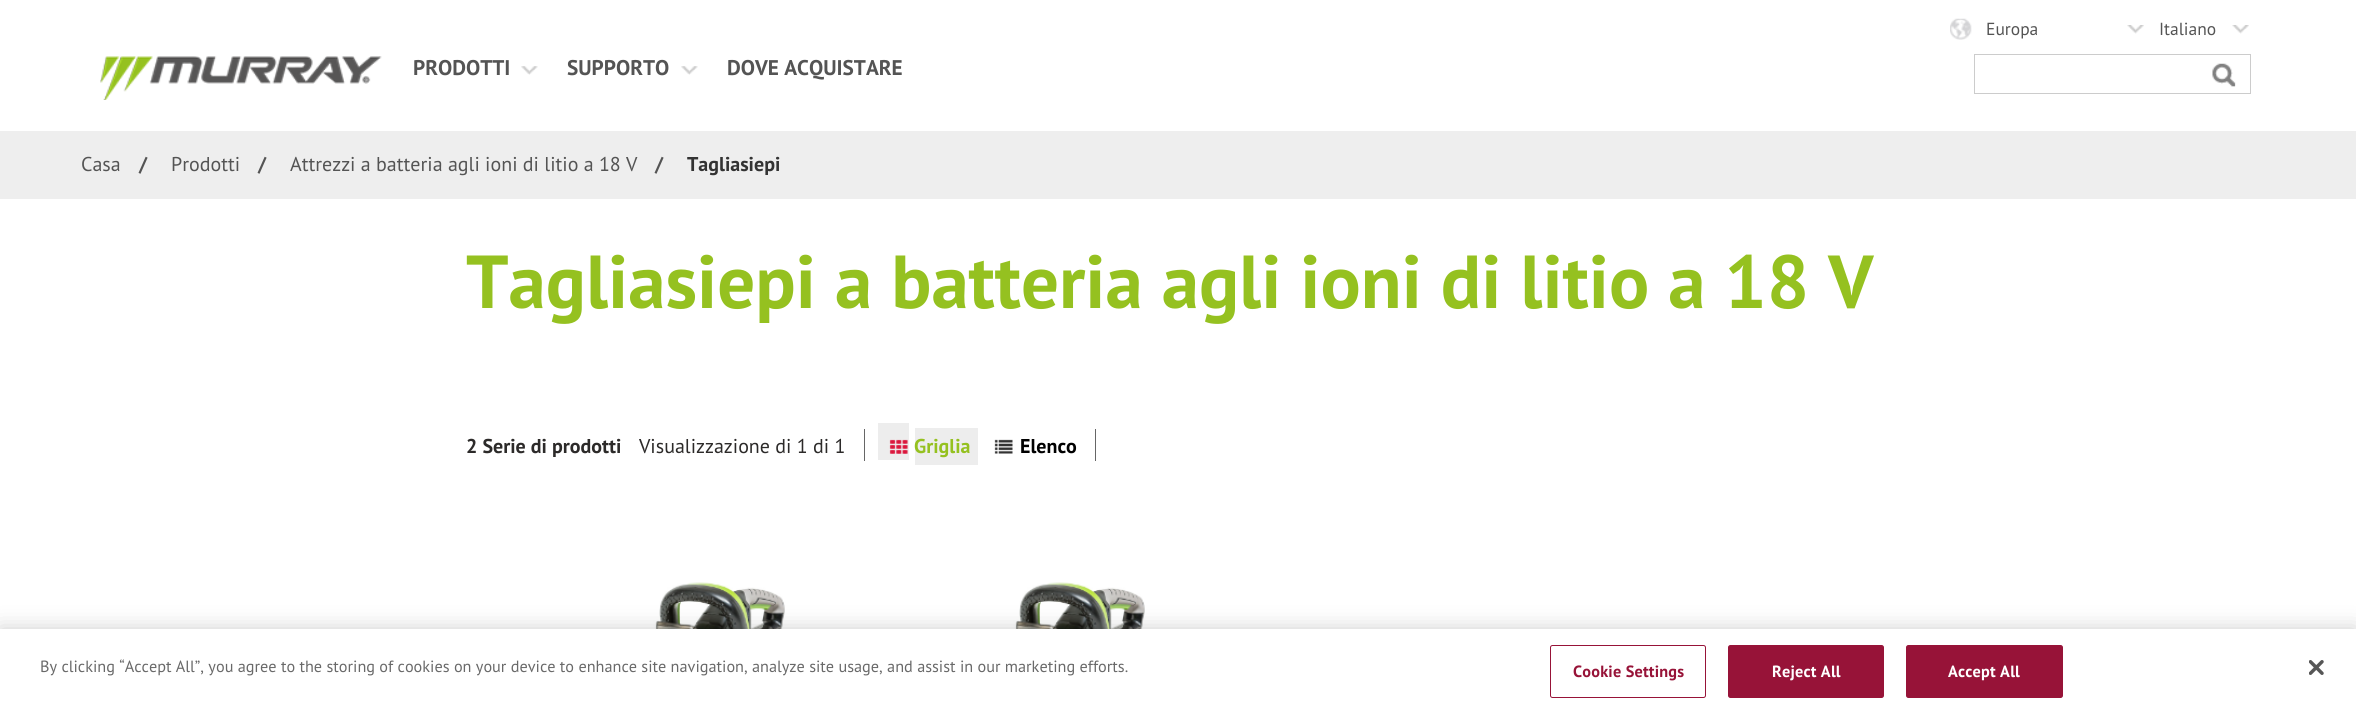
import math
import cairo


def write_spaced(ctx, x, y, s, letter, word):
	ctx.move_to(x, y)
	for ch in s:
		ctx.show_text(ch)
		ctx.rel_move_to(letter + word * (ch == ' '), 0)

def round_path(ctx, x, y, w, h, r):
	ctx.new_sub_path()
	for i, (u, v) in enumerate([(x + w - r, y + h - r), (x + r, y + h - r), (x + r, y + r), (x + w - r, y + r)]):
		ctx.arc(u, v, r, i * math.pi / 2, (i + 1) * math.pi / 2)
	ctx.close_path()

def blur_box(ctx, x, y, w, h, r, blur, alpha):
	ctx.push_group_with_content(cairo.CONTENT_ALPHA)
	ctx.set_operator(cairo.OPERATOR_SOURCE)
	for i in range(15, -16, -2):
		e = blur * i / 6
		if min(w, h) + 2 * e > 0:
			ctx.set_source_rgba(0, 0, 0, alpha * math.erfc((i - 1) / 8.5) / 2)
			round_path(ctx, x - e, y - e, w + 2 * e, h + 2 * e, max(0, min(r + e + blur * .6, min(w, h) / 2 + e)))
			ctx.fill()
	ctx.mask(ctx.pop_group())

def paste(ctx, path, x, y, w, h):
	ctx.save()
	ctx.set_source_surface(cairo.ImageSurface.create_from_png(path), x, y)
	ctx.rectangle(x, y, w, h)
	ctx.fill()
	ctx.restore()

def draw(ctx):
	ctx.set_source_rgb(1, 1, 1)
	ctx.paint()
	paste(ctx, 'media/1.png', 1950, 18, 22, 22)
	paste(ctx, 'media/2.png', 2127, 25, 17, 9)
	ctx.select_font_face('PT Sans')
	ctx.set_font_size(17.5)
	ctx.set_source_rgb(0.329, 0.329, 0.329)
	ctx.move_to(1986, 35)
	ctx.show_text('Europa')
	paste(ctx, 'media/3.png', 2232, 25, 17, 9)
	ctx.move_to(2159, 35)
	ctx.show_text('Italiano')
	ctx.rectangle(1974.5, 54.5, 276, 39)
	ctx.set_source_rgb(0.8, 0.8, 0.8)
	ctx.set_line_width(1)
	ctx.stroke()
	paste(ctx, 'media/4.png', 2212, 63, 24, 24)
	paste(ctx, 'media/5.png', 100, 56, 282, 44)
	ctx.select_font_face('PT Sans', cairo.FONT_SLANT_NORMAL, cairo.FONT_WEIGHT_BOLD)
	ctx.set_font_size(21.25)
	ctx.set_source_rgb(0.329, 0.329, 0.329)
	ctx.move_to(413, 75)
	ctx.show_text('PRODOTTI')
	paste(ctx, 'media/6.png', 521, 66, 17, 9)
	ctx.move_to(567, 75)
	ctx.show_text('SUPPORTO')
	paste(ctx, 'media/6.png', 681, 66, 17, 9)
	ctx.move_to(727, 75)
	ctx.show_text('DOVE ACQUISTARE')
	ctx.set_source_rgb(0.933, 0.933, 0.933)
	ctx.rectangle(0, 131, 2356, 68)
	ctx.fill()
	ctx.select_font_face('PT Sans')
	ctx.set_font_size(20)
	ctx.set_source_rgb(0.329, 0.329, 0.329)
	ctx.move_to(81, 171)
	ctx.show_text('Casa')
	ctx.select_font_face('PT Sans', cairo.FONT_SLANT_NORMAL, cairo.FONT_WEIGHT_BOLD)
	ctx.move_to(139, 171)
	ctx.show_text('/')
	ctx.select_font_face('PT Sans')
	ctx.move_to(171, 171)
	ctx.show_text('Prodotti')
	ctx.select_font_face('PT Sans', cairo.FONT_SLANT_NORMAL, cairo.FONT_WEIGHT_BOLD)
	ctx.move_to(258, 171)
	ctx.show_text('/')
	ctx.select_font_face('PT Sans')
	ctx.move_to(290, 171)
	ctx.show_text('Attrezzi a batteria agli ioni di litio a 18 V')
	ctx.select_font_face('PT Sans', cairo.FONT_SLANT_NORMAL, cairo.FONT_WEIGHT_BOLD)
	ctx.move_to(655, 171)
	ctx.show_text('/')
	ctx.set_source_rgb(0.2, 0.2, 0.2)
	ctx.move_to(687, 171)
	ctx.show_text('Tagliasiepi')
	ctx.set_font_size(75)
	ctx.set_source_rgb(0.584, 0.757, 0.125)
	ctx.move_to(466, 308)
	ctx.show_text('Tagliasiepi a batteria agli ioni di litio a 18 V')
	ctx.set_font_size(20)
	ctx.set_source_rgb(0.173, 0.165, 0.161)
	ctx.move_to(466, 453)
	ctx.show_text('2 Serie di prodotti')
	ctx.select_font_face('PT Sans')
	ctx.move_to(639, 453)
	ctx.show_text('Visualizzazione di 1 di 1')
	ctx.set_source_rgb(0.4, 0.4, 0.4)
	ctx.rectangle(1095, 429, 1, 32)
	ctx.rectangle(864, 429, 1, 32)
	ctx.fill()
	ctx.set_source_rgb(0.929, 0.929, 0.929)
	ctx.rectangle(878, 423, 31, 37)
	ctx.rectangle(915, 428, 63, 37)
	ctx.fill()
	paste(ctx, 'media/7.png', 889, 439, 19, 15)
	ctx.select_font_face('PT Sans', cairo.FONT_SLANT_NORMAL, cairo.FONT_WEIGHT_BOLD)
	ctx.set_source_rgb(0.584, 0.757, 0.125)
	ctx.move_to(914, 453)
	ctx.show_text('Griglia')
	paste(ctx, 'media/8.png', 994, 439, 19, 15)
	ctx.set_source_rgb(0, 0, 0)
	ctx.move_to(1020, 453)
	ctx.show_text('Elenco')
	paste(ctx, 'media/9.png', 540, 582, 255, 47)
	paste(ctx, 'media/10.png', 900, 582, 245, 47)
	ctx.set_source_rgb(0, 0, 0)
	blur_box(ctx, 0, 629, 2356, 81, 0, 11, 0.2)
	ctx.set_source_rgb(1, 1, 1)
	ctx.rectangle(0, 629, 2356, 80)
	ctx.fill()
	ctx.select_font_face('PT Sans')
	ctx.set_font_size(16.25)
	ctx.set_source_rgb(0.412, 0.412, 0.412)
	ctx.move_to(40, 672)
	ctx.show_text('By clicking “Accept All”, you agree to the storing of cookies on your device to enhance site navigation, analyze site usage, and assist in our marketing efforts.')
	round_path(ctx, 1550.5, 645.5, 155, 52, 2)
	ctx.set_source_rgb(0.592, 0.075, 0.22)
	ctx.stroke()
	ctx.select_font_face('PT Sans', cairo.FONT_SLANT_NORMAL, cairo.FONT_WEIGHT_BOLD)
	write_spaced(ctx, 1573, 677, 'Cookie Settings', 0.2, 0)
	round_path(ctx, 1728.5, 645.5, 155, 52, 2)
	ctx.fill_preserve()
	ctx.stroke()
	ctx.set_source_rgb(1, 1, 1)
	write_spaced(ctx, 1772, 677, 'Reject All', 0.2, 0)
	ctx.set_source_rgb(0.592, 0.075, 0.22)
	round_path(ctx, 1906.5, 645.5, 156, 52, 2)
	ctx.fill_preserve()
	ctx.stroke()
	ctx.set_source_rgb(1, 1, 1)
	write_spaced(ctx, 1948, 677, 'Accept All', 0.2, 0)
	paste(ctx, 'media/11.png', 2309, 660, 15, 15)


surface = cairo.ImageSurface(cairo.FORMAT_RGB24, 2356, 709)
ctx = cairo.Context(surface)
options = cairo.FontOptions()
options.set_hint_metrics(cairo.HINT_METRICS_OFF)
options.set_hint_style(cairo.HINT_STYLE_NONE)
ctx.set_font_options(options)
ctx.set_miter_limit(4)
draw(ctx)
surface.write_to_png('image.png')
